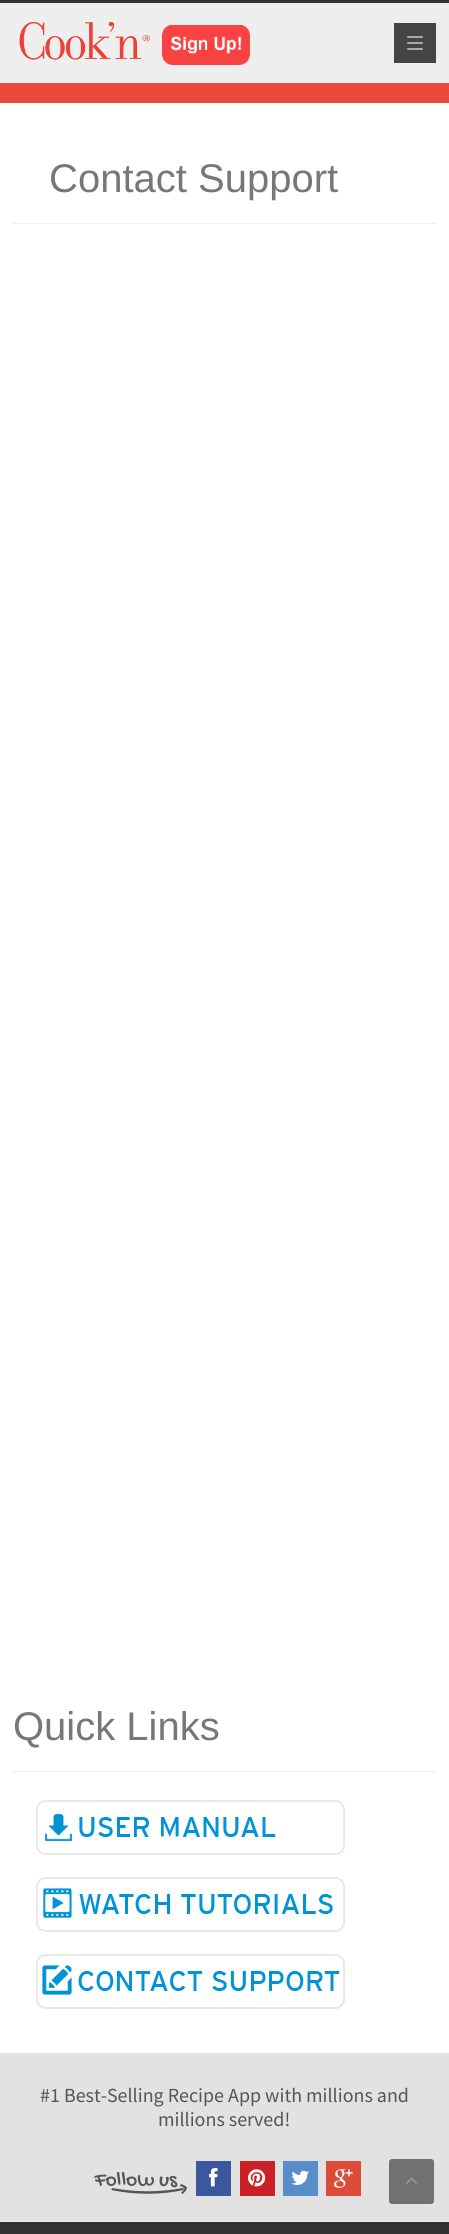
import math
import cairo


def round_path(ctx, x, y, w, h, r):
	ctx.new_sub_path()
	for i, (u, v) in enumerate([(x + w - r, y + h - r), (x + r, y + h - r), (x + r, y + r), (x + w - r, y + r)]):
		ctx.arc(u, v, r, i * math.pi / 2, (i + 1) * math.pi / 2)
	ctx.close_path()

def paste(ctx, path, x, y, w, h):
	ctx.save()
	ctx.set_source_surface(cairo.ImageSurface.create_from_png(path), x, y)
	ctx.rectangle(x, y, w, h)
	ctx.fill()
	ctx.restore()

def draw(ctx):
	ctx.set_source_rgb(0.933, 0.933, 0.933)
	ctx.paint()
	ctx.set_source_rgb(0.2, 0.2, 0.2)
	ctx.rectangle(0, 0, 449, 3)
	ctx.fill()
	paste(ctx, 'media/1.png', 19, 22, 131, 38)
	paste(ctx, 'media/2.png', 162, 25, 88, 40)
	ctx.set_source_rgb(0.267, 0.267, 0.267)
	ctx.rectangle(394, 23, 42, 40)
	ctx.fill()
	ctx.set_source_rgb(0.667, 0.667, 0.667)
	round_path(ctx, 407, 36, 16, 2, 1)
	ctx.fill()
	round_path(ctx, 407, 42, 16, 2, 1)
	ctx.fill()
	round_path(ctx, 407, 48, 16, 2, 1)
	ctx.fill()
	ctx.set_source_rgb(0.918, 0.278, 0.231)
	ctx.rectangle(0, 83, 449, 20)
	ctx.fill()
	ctx.set_source_rgb(1, 1, 1)
	ctx.rectangle(0, 103, 449, 1950)
	ctx.fill()
	ctx.select_font_face('Liberation Sans')
	ctx.set_font_size(40)
	ctx.set_source_rgb(0.467, 0.467, 0.467)
	ctx.move_to(49, 192)
	ctx.show_text('Contact Support')
	ctx.set_source_rgb(0.933, 0.933, 0.933)
	ctx.rectangle(13, 223, 423, 1)
	ctx.fill()
	ctx.set_source_rgb(0.467, 0.467, 0.467)
	ctx.move_to(13, 1740)
	ctx.show_text('Quick Links')
	ctx.set_source_rgb(0.933, 0.933, 0.933)
	ctx.rectangle(13, 1771, 423, 1)
	ctx.fill()
	paste(ctx, 'media/3.png', 36, 1800, 309, 55)
	paste(ctx, 'media/4.png', 36, 1877, 309, 55)
	paste(ctx, 'media/5.png', 36, 1954, 309, 55)
	ctx.set_source_rgb(0.886, 0.886, 0.886)
	ctx.rectangle(0, 2053, 449, 168)
	ctx.fill()
	ctx.select_font_face('Source Sans Pro')
	ctx.set_font_size(20)
	ctx.set_source_rgb(0.333, 0.333, 0.333)
	ctx.move_to(40, 2102)
	ctx.show_text('#1 Best-Selling Recipe App with millions and')
	ctx.move_to(158, 2126)
	ctx.show_text('millions served!')
	paste(ctx, 'media/6.png', 94, 2172, 93, 22)
	ctx.set_source_rgb(0.227, 0.345, 0.608)
	ctx.rectangle(196, 2161, 35, 35)
	ctx.fill()
	paste(ctx, 'media/7.png', 209, 2168, 9, 19)
	ctx.set_source_rgb(0.796, 0.125, 0.149)
	ctx.rectangle(240, 2161, 35, 35)
	ctx.fill()
	paste(ctx, 'media/8.png', 248, 2169, 18, 18)
	ctx.set_source_rgb(0.349, 0.553, 0.792)
	ctx.rectangle(283, 2161, 35, 35)
	ctx.fill()
	paste(ctx, 'media/9.png', 291, 2170, 18, 15)
	ctx.set_source_rgb(0.867, 0.298, 0.224)
	ctx.rectangle(326, 2161, 35, 35)
	ctx.fill()
	paste(ctx, 'media/10.png', 334, 2169, 19, 19)
	ctx.set_source_rgb(0.443, 0.443, 0.443)
	round_path(ctx, 389, 2159, 45, 45, 3)
	ctx.fill()
	paste(ctx, 'media/11.png', 406, 2177, 11, 7)
	ctx.set_source_rgb(0.192, 0.192, 0.192)
	ctx.rectangle(0, 2222, 449, 12)
	ctx.fill()


surface = cairo.ImageSurface(cairo.FORMAT_RGB24, 449, 2234)
ctx = cairo.Context(surface)
options = cairo.FontOptions()
options.set_hint_metrics(cairo.HINT_METRICS_OFF)
options.set_hint_style(cairo.HINT_STYLE_NONE)
ctx.set_font_options(options)
ctx.set_miter_limit(4)
draw(ctx)
surface.write_to_png('image.png')
